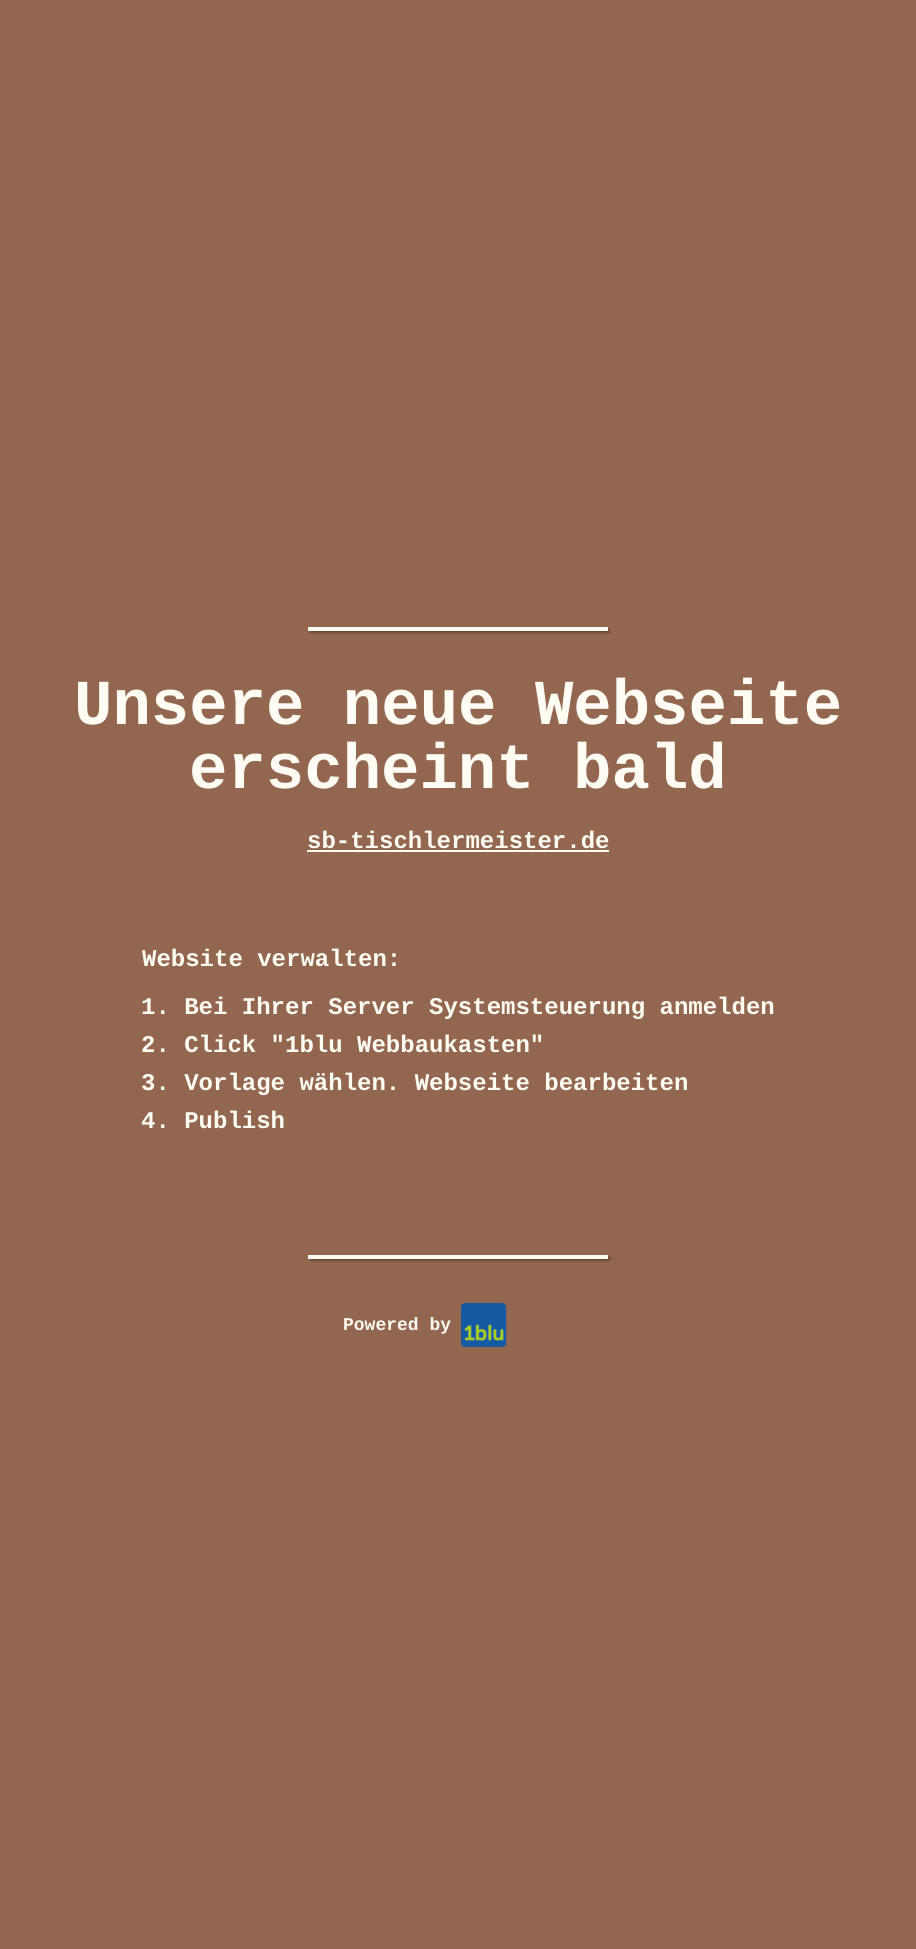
import math
import cairo


def round_path(ctx, x, y, w, h, r):
	ctx.new_sub_path()
	for i, (u, v) in enumerate([(x + w - r, y + h - r), (x + r, y + h - r), (x + r, y + r), (x + w - r, y + r)]):
		ctx.arc(u, v, r, i * math.pi / 2, (i + 1) * math.pi / 2)
	ctx.close_path()

def blur_box(ctx, x, y, w, h, r, blur, alpha):
	ctx.push_group_with_content(cairo.CONTENT_ALPHA)
	ctx.set_operator(cairo.OPERATOR_SOURCE)
	for i in range(15, -16, -2):
		e = blur * i / 6
		if min(w, h) + 2 * e > 0:
			ctx.set_source_rgba(0, 0, 0, alpha * math.erfc((i - 1) / 8.5) / 2)
			round_path(ctx, x - e, y - e, w + 2 * e, h + 2 * e, max(0, min(r + e + blur * .6, min(w, h) / 2 + e)))
			ctx.fill()
	ctx.mask(ctx.pop_group())

def paste(ctx, path, x, y, w, h):
	ctx.save()
	ctx.set_source_surface(cairo.ImageSurface.create_from_png(path), x, y)
	ctx.rectangle(x, y, w, h)
	ctx.fill()
	ctx.restore()

def draw(ctx):
	ctx.set_source_rgb(0.576, 0.404, 0.31)
	ctx.paint()
	ctx.set_source_rgb(0, 0, 0)
	blur_box(ctx, 310, 629, 300, 4, 0, 1, 0.3)
	ctx.set_source_rgb(0.996, 0.988, 0.953)
	ctx.rectangle(308, 627, 300, 4)
	ctx.fill()
	ctx.select_font_face('Liberation Mono', cairo.FONT_SLANT_NORMAL, cairo.FONT_WEIGHT_BOLD)
	ctx.set_font_size(64)
	ctx.move_to(74, 724)
	ctx.show_text('Unsere neue Webseite')
	ctx.move_to(189, 788)
	ctx.show_text('erscheint bald')
	ctx.set_font_size(24)
	ctx.move_to(307, 848)
	ctx.show_text('sb-tischlermeister.de')
	ctx.rectangle(307, 850, 302, 2)
	ctx.fill()
	for x, y, s in [
		(142, 966, 'Website verwalten:'),
		(141, 1014, '1. Bei Ihrer Server Systemsteuerung anmelden'),
		(141, 1052, '2. Click "1blu Webbaukasten"'),
		(141, 1090, '3. Vorlage wählen. Webseite bearbeiten'),
		(141, 1128, '4. Publish'),
	]:
		ctx.move_to(x, y)
		ctx.show_text(s)
	ctx.set_source_rgb(0, 0, 0)
	blur_box(ctx, 310, 1257, 300, 4, 0, 1, 0.3)
	ctx.set_source_rgb(0.996, 0.988, 0.953)
	ctx.rectangle(308, 1255, 300, 4)
	ctx.fill()
	ctx.set_font_size(18)
	ctx.move_to(343, 1330)
	ctx.show_text('Powered by')
	paste(ctx, 'media/1.png', 461, 1303, 46, 44)


surface = cairo.ImageSurface(cairo.FORMAT_RGB24, 916, 1949)
ctx = cairo.Context(surface)
options = cairo.FontOptions()
options.set_hint_metrics(cairo.HINT_METRICS_OFF)
options.set_hint_style(cairo.HINT_STYLE_NONE)
ctx.set_font_options(options)
ctx.set_miter_limit(4)
draw(ctx)
surface.write_to_png('image.png')
